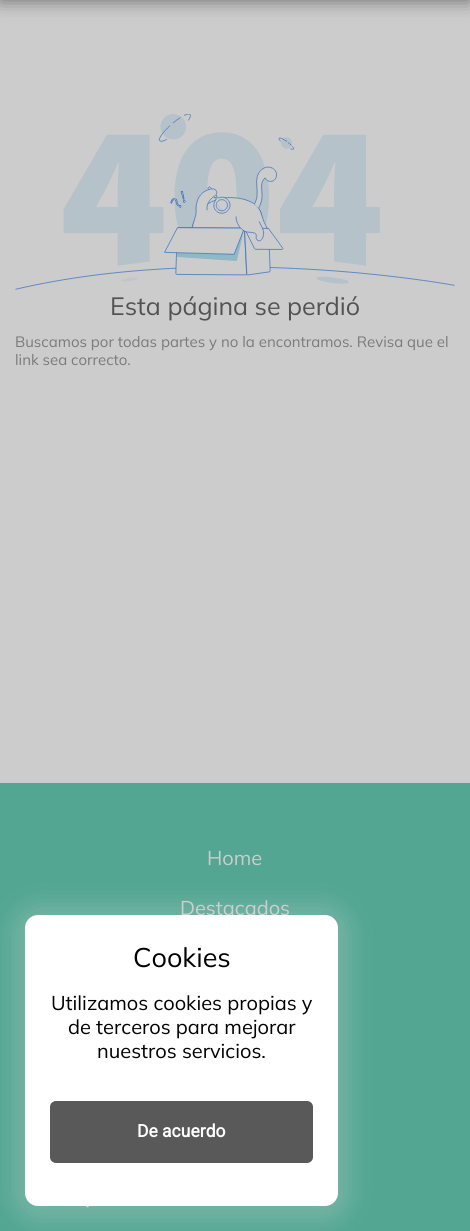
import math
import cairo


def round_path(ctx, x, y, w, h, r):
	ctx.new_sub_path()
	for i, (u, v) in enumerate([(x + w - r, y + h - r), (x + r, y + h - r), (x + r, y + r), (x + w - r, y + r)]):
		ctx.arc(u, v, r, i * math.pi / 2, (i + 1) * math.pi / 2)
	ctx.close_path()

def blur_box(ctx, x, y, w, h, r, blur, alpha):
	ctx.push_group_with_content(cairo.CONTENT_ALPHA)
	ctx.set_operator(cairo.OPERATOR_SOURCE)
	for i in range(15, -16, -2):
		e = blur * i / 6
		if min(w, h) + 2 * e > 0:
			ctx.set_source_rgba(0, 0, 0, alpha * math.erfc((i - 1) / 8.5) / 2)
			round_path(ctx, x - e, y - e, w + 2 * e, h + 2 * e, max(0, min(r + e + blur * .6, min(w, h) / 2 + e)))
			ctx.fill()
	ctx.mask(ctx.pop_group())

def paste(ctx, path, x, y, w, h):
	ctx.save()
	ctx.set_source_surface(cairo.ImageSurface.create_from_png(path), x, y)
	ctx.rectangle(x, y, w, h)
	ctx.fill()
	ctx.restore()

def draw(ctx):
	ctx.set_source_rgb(0.8, 0.8, 0.8)
	ctx.paint()
	ctx.set_source_rgb(0, 0, 0)
	blur_box(ctx, 0, -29, 470, 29, 0, 9.5, 0.5)
	paste(ctx, 'media/1.png', 15, 114, 440, 176)
	ctx.select_font_face('Mulish ExtraLight')
	ctx.set_font_size(25)
	ctx.set_source_rgb(0.322, 0.322, 0.322)
	ctx.move_to(110, 315)
	ctx.show_text('Esta página se perdió')
	ctx.set_font_size(15)
	ctx.set_source_rgb(0.478, 0.478, 0.478)
	ctx.move_to(15, 347)
	ctx.show_text('Buscamos por todas partes y no la encontramos. Revisa que el')
	ctx.move_to(15, 365)
	ctx.show_text('link sea correcto.')
	ctx.set_source_rgb(0.322, 0.651, 0.573)
	ctx.rectangle(0, 783, 470, 448)
	ctx.fill()
	ctx.set_font_size(20)
	ctx.set_source_rgb(0.8, 0.8, 0.8)
	ctx.move_to(207, 865)
	ctx.show_text('Home')
	ctx.move_to(180, 915)
	ctx.show_text('Destacados')
	paste(ctx, 'media/2.png', 86, 1206, 4, 2)
	ctx.set_source_rgb(0.871, 0.871, 0.871)
	blur_box(ctx, 13, 905, 337, 316, 25, 12.5, 0.25)
	ctx.set_source_rgb(1, 1, 1)
	round_path(ctx, 25, 915, 313, 291, 13)
	ctx.fill()
	ctx.set_font_size(27)
	ctx.set_source_rgb(0, 0, 0)
	ctx.move_to(133, 967)
	ctx.show_text('Cookies')
	ctx.set_font_size(20)
	for x, y, s in [
		(51, 1010, 'Utilizamos cookies propias y'),
		(68, 1034, 'de terceros para mejorar'),
		(97, 1058, 'nuestros servicios.'),
	]:
		ctx.move_to(x, y)
		ctx.show_text(s)
	ctx.set_source_rgb(0.349, 0.349, 0.349)
	round_path(ctx, 50, 1101, 263, 62, 6)
	ctx.fill()
	ctx.select_font_face('Roboto', cairo.FONT_SLANT_NORMAL, cairo.FONT_WEIGHT_BOLD)
	ctx.set_font_size(17.5)
	ctx.set_source_rgb(1, 1, 1)
	ctx.move_to(137, 1137)
	ctx.show_text('De acuerdo')


surface = cairo.ImageSurface(cairo.FORMAT_RGB24, 470, 1231)
ctx = cairo.Context(surface)
options = cairo.FontOptions()
options.set_hint_metrics(cairo.HINT_METRICS_OFF)
options.set_hint_style(cairo.HINT_STYLE_NONE)
ctx.set_font_options(options)
ctx.set_miter_limit(4)
draw(ctx)
surface.write_to_png('image.png')
